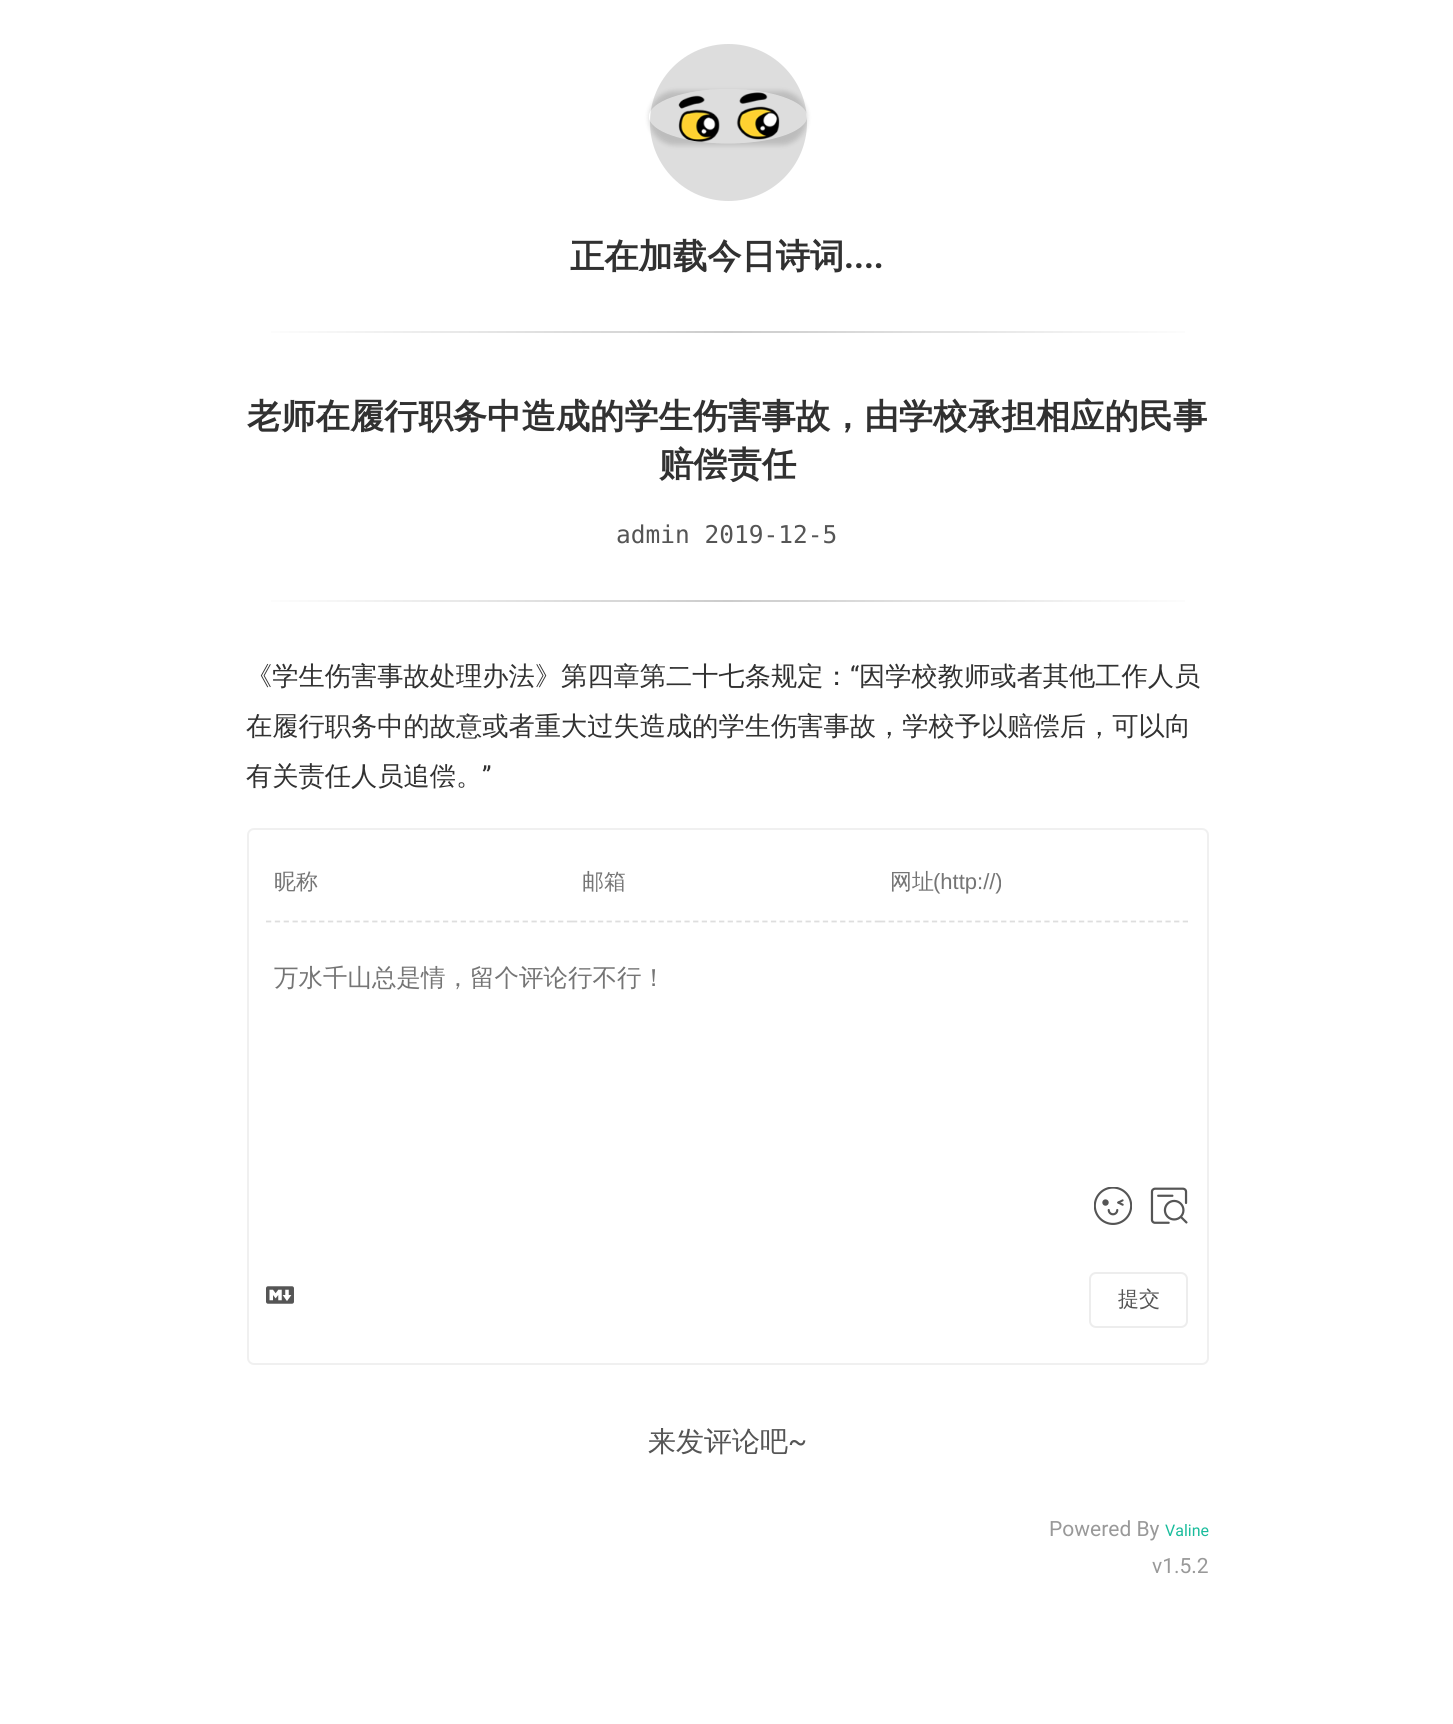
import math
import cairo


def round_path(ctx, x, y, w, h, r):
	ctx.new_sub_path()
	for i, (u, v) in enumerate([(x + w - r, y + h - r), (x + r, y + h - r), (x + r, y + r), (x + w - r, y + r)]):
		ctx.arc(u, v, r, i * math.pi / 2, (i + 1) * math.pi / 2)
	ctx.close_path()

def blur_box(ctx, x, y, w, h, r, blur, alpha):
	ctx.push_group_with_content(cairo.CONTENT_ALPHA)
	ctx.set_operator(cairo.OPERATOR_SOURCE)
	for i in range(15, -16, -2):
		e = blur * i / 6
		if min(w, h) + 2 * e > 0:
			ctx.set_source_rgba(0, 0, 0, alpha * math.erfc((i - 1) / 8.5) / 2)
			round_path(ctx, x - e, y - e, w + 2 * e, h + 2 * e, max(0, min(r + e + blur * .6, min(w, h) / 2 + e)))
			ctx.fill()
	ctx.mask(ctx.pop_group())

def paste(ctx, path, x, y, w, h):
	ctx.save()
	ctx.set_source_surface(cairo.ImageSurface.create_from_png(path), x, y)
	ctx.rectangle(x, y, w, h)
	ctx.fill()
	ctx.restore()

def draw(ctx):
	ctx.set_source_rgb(1, 1, 1)
	ctx.paint()
	ctx.set_source_rgb(0.867, 0.867, 0.867)
	ctx.arc(728.5, 122.5, 83, 0, 2 * math.pi)
	ctx.fill_preserve()
	ctx.set_source_rgb(1, 1, 1)
	ctx.set_line_width(9)
	ctx.stroke()
	ctx.save()
	ctx.set_fill_rule(cairo.FILL_RULE_EVEN_ODD)
	ctx.new_path()
	ctx.move_to(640, 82)
	ctx.line_to(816, 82)
	ctx.line_to(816, 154)
	ctx.line_to(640, 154)
	ctx.close_path()
	ctx.move_to(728, 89)
	ctx.curve_to(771.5, 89, 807, 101.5, 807, 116.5)
	ctx.curve_to(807, 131.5, 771.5, 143.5, 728, 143.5)
	ctx.curve_to(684.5, 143.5, 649, 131.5, 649, 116.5)
	ctx.curve_to(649, 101.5, 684.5, 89, 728, 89)
	ctx.close_path()
	ctx.clip()
	ctx.set_source_rgb(0, 0, 0)
	blur_box(ctx, 649, 91, 158, 54, 27, 2.5, 0.15)
	ctx.restore()
	paste(ctx, 'media/1.png', 678, 92, 102, 50)
	ctx.select_font_face('WenQuanYi Zen Hei', cairo.FONT_SLANT_NORMAL, cairo.FONT_WEIGHT_BOLD)
	ctx.set_font_size(34.3)
	ctx.set_source_rgb(0.192, 0.192, 0.192)
	ctx.move_to(570, 268)
	ctx.show_text('正在加载今日诗词')
	ctx.select_font_face('Roboto', cairo.FONT_SLANT_NORMAL, cairo.FONT_WEIGHT_BOLD)
	ctx.move_to(844, 268)
	ctx.show_text('....')
	gradient = cairo.LinearGradient(247, 332, 1209, 332)
	gradient.add_color_stop_rgba(0, 1, 1, 1, 1)
	gradient.add_color_stop_rgba(0.5, 0.8, 0.8, 0.8, 1)
	gradient.add_color_stop_rgba(1, 1, 1, 1, 1)
	ctx.set_source(gradient)
	ctx.rectangle(271, 331, 914, 2)
	ctx.fill()
	ctx.select_font_face('WenQuanYi Zen Hei', cairo.FONT_SLANT_NORMAL, cairo.FONT_WEIGHT_BOLD)
	ctx.set_source_rgb(0.192, 0.192, 0.192)
	ctx.move_to(247, 428)
	ctx.show_text('老师在履行职务中造成的学生伤害事故，由学校承担相应的民事')
	ctx.move_to(659, 476)
	ctx.show_text('赔偿责任')
	ctx.select_font_face('DejaVu Sans Mono')
	ctx.set_font_size(24.5)
	ctx.set_source_rgb(0.333, 0.333, 0.333)
	ctx.move_to(616, 543)
	ctx.show_text('admin 2019-12-5')
	gradient = cairo.LinearGradient(247, 601, 1209, 601)
	gradient.add_color_stop_rgba(0, 1, 1, 1, 1)
	gradient.add_color_stop_rgba(0.5, 0.8, 0.8, 0.8, 1)
	gradient.add_color_stop_rgba(1, 1, 1, 1, 1)
	ctx.set_source(gradient)
	ctx.rectangle(271, 600, 914, 2)
	ctx.fill()
	ctx.select_font_face('WenQuanYi Zen Hei Medium')
	ctx.set_font_size(26.25)
	ctx.set_source_rgb(0.192, 0.192, 0.192)
	ctx.move_to(246, 685)
	ctx.show_text('《学生伤害事故处理办法》第四章第二十七条规定：')
	ctx.select_font_face('Roboto')
	ctx.move_to(850, 685)
	ctx.show_text('“')
	ctx.select_font_face('WenQuanYi Zen Hei Medium')
	for x, y, s in [
		(859, 685, '因学校教师或者其他工作人员'),
		(246, 735, '在履行职务中的故意或者重大过失造成的学生伤害事故，学校予以赔偿后，可以向'),
		(246, 785, '有关责任人员追偿。'),
	]:
		ctx.move_to(x, y)
		ctx.show_text(s)
	ctx.select_font_face('Roboto')
	ctx.move_to(482, 785)
	ctx.show_text('”')
	round_path(ctx, 248, 829, 960, 535, 6)
	ctx.set_source_rgb(0.941, 0.941, 0.941)
	ctx.set_line_width(2)
	ctx.stroke()
	ctx.new_path()
	ctx.move_to(266, 921.5)
	ctx.line_to(572, 921.5)
	ctx.set_source_rgb(0.871, 0.871, 0.871)
	ctx.set_line_width(1.8)
	ctx.set_dash([5.25, 3.6])
	ctx.stroke()
	ctx.select_font_face('WenQuanYi Zen Hei Medium')
	ctx.set_font_size(22)
	ctx.set_source_rgb(0.459, 0.459, 0.459)
	ctx.move_to(274, 889)
	ctx.show_text('昵称')
	ctx.new_path()
	ctx.move_to(572, 921.5)
	ctx.line_to(880, 921.5)
	ctx.set_source_rgb(0.871, 0.871, 0.871)
	ctx.set_dash([5.25, 3.4])
	ctx.stroke()
	ctx.set_source_rgb(0.459, 0.459, 0.459)
	ctx.move_to(582, 889)
	ctx.show_text('邮箱')
	ctx.new_path()
	ctx.move_to(880, 921.5)
	ctx.line_to(1188, 921.5)
	ctx.set_source_rgb(0.871, 0.871, 0.871)
	ctx.stroke()
	ctx.set_source_rgb(0.459, 0.459, 0.459)
	ctx.move_to(890, 889)
	ctx.show_text('网址')
	ctx.select_font_face('Liberation Sans')
	ctx.move_to(933, 889)
	ctx.show_text('(http://)')
	ctx.select_font_face('WenQuanYi Zen Hei Medium')
	ctx.set_font_size(24.5)
	ctx.move_to(274, 986)
	ctx.show_text('万水千山总是情，留个评论行不行！')
	paste(ctx, 'media/2.png', 1094, 1187, 38, 38)
	paste(ctx, 'media/3.png', 1150, 1187, 38, 37)
	paste(ctx, 'media/4.png', 266, 1286, 28, 18)
	round_path(ctx, 1090, 1273, 97, 54, 6)
	ctx.set_source_rgb(0.929, 0.929, 0.929)
	ctx.set_line_width(2)
	ctx.set_dash([])
	ctx.stroke()
	ctx.set_font_size(21)
	ctx.set_source_rgb(0.333, 0.333, 0.333)
	ctx.move_to(1118, 1306)
	ctx.show_text('提交')
	ctx.set_font_size(28)
	ctx.move_to(648, 1451)
	ctx.show_text('来发评论吧')
	ctx.select_font_face('Roboto')
	ctx.move_to(788, 1451)
	ctx.show_text('~')
	ctx.set_font_size(21)
	ctx.set_source_rgb(0.6, 0.6, 0.6)
	ctx.move_to(1049, 1536)
	ctx.show_text('Powered By')
	ctx.set_font_size(16)
	ctx.set_source_rgb(0.102, 0.737, 0.612)
	ctx.move_to(1165, 1536)
	ctx.show_text('Valine')
	ctx.set_font_size(21)
	ctx.set_source_rgb(0.6, 0.6, 0.6)
	ctx.move_to(1152, 1573)
	ctx.show_text('v1.5.2')


surface = cairo.ImageSurface(cairo.FORMAT_RGB24, 1453, 1724)
ctx = cairo.Context(surface)
options = cairo.FontOptions()
options.set_hint_metrics(cairo.HINT_METRICS_OFF)
options.set_hint_style(cairo.HINT_STYLE_NONE)
ctx.set_font_options(options)
ctx.set_miter_limit(4)
draw(ctx)
surface.write_to_png('image.png')
